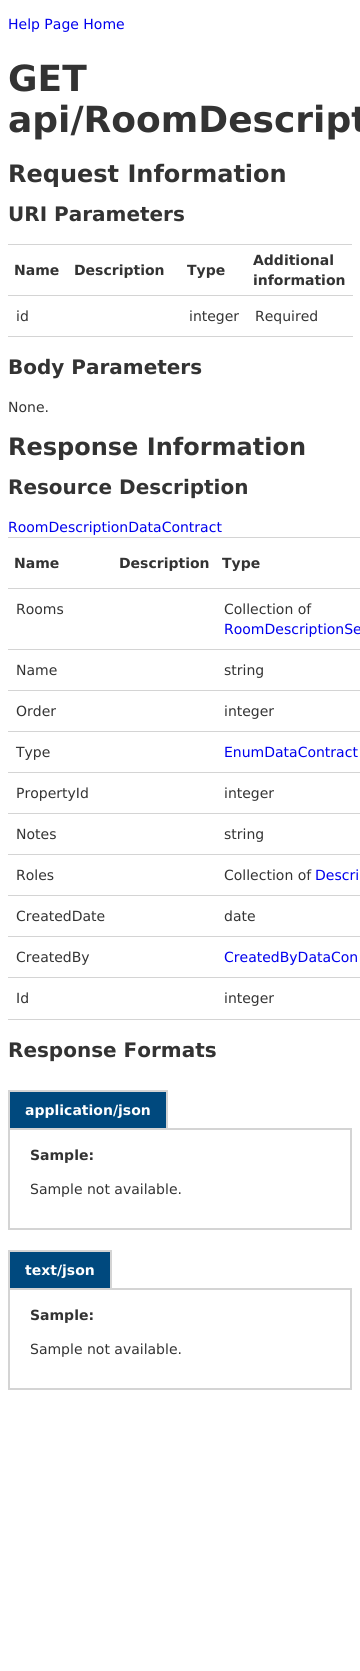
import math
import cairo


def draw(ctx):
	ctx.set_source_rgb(1, 1, 1)
	ctx.paint()
	ctx.select_font_face('DejaVu Sans')
	ctx.set_font_size(14)
	ctx.set_source_rgb(0, 0, 0.933)
	ctx.move_to(8, 29)
	ctx.show_text('Help Page Home')
	ctx.select_font_face('DejaVu Sans', cairo.FONT_SLANT_NORMAL, cairo.FONT_WEIGHT_BOLD)
	ctx.set_font_size(36)
	ctx.set_source_rgb(0.2, 0.2, 0.2)
	ctx.move_to(8, 91)
	ctx.show_text('GET')
	ctx.move_to(8, 132)
	ctx.show_text('api/RoomDescript')
	ctx.set_font_size(24)
	ctx.move_to(8, 182)
	ctx.show_text('Request Information')
	ctx.set_font_size(20)
	ctx.move_to(8, 221)
	ctx.show_text('URI Parameters')
	ctx.set_source_rgb(0.831, 0.831, 0.831)
	ctx.rectangle(8, 244, 344, 1)
	ctx.fill()
	ctx.set_font_size(14)
	ctx.set_source_rgb(0.2, 0.2, 0.2)
	for x, y, s in [
		(14, 275, 'Name'),
		(74, 275, 'Description'),
		(187, 275, 'Type'),
	]:
		ctx.move_to(x, y)
		ctx.show_text(s)
	ctx.set_source_rgb(0.831, 0.831, 0.831)
	ctx.rectangle(8, 295, 345, 1)
	ctx.fill()
	ctx.set_source_rgb(0.2, 0.2, 0.2)
	ctx.move_to(253, 265)
	ctx.show_text('Additional')
	ctx.move_to(253, 285)
	ctx.show_text('information')
	ctx.select_font_face('DejaVu Sans')
	ctx.move_to(16, 321)
	ctx.show_text('id')
	ctx.move_to(189, 321)
	ctx.show_text('integer')
	ctx.set_source_rgb(0.831, 0.831, 0.831)
	ctx.rectangle(8, 336, 345, 1)
	ctx.fill()
	ctx.set_source_rgb(0.2, 0.2, 0.2)
	ctx.move_to(255, 321)
	ctx.show_text('Required')
	ctx.select_font_face('DejaVu Sans', cairo.FONT_SLANT_NORMAL, cairo.FONT_WEIGHT_BOLD)
	ctx.set_font_size(20)
	ctx.move_to(8, 374)
	ctx.show_text('Body Parameters')
	ctx.select_font_face('DejaVu Sans')
	ctx.set_font_size(14)
	ctx.move_to(8, 412)
	ctx.show_text('None.')
	ctx.select_font_face('DejaVu Sans', cairo.FONT_SLANT_NORMAL, cairo.FONT_WEIGHT_BOLD)
	ctx.set_font_size(24)
	ctx.move_to(8, 455)
	ctx.show_text('Response Information')
	ctx.set_font_size(20)
	ctx.move_to(8, 494)
	ctx.show_text('Resource Description')
	ctx.select_font_face('DejaVu Sans')
	ctx.set_font_size(14)
	ctx.set_source_rgb(0, 0, 0.933)
	ctx.move_to(8, 532)
	ctx.show_text('RoomDescriptionDataContract')
	ctx.set_source_rgb(0.831, 0.831, 0.831)
	ctx.rectangle(8, 537, 352, 1)
	ctx.fill()
	ctx.select_font_face('DejaVu Sans', cairo.FONT_SLANT_NORMAL, cairo.FONT_WEIGHT_BOLD)
	ctx.set_source_rgb(0.2, 0.2, 0.2)
	ctx.move_to(14, 568)
	ctx.show_text('Name')
	ctx.move_to(119, 568)
	ctx.show_text('Description')
	ctx.set_source_rgb(0.831, 0.831, 0.831)
	ctx.rectangle(8, 588, 352, 1)
	ctx.fill()
	ctx.set_source_rgb(0.2, 0.2, 0.2)
	ctx.move_to(222, 568)
	ctx.show_text('Type')
	ctx.select_font_face('DejaVu Sans')
	ctx.move_to(16, 614)
	ctx.show_text('Rooms')
	ctx.set_source_rgb(0.831, 0.831, 0.831)
	ctx.rectangle(8, 649, 352, 1)
	ctx.fill()
	ctx.set_source_rgb(0.2, 0.2, 0.2)
	ctx.move_to(224, 614)
	ctx.show_text('Collection of')
	ctx.set_source_rgb(0, 0, 0.933)
	ctx.move_to(224, 634)
	ctx.show_text('RoomDescriptionSe')
	ctx.set_source_rgb(0.2, 0.2, 0.2)
	ctx.move_to(16, 675)
	ctx.show_text('Name')
	ctx.set_source_rgb(0.831, 0.831, 0.831)
	ctx.rectangle(8, 690, 352, 1)
	ctx.fill()
	ctx.set_source_rgb(0.2, 0.2, 0.2)
	ctx.move_to(224, 675)
	ctx.show_text('string')
	ctx.move_to(16, 716)
	ctx.show_text('Order')
	ctx.set_source_rgb(0.831, 0.831, 0.831)
	ctx.rectangle(8, 731, 352, 1)
	ctx.fill()
	ctx.set_source_rgb(0.2, 0.2, 0.2)
	ctx.move_to(224, 716)
	ctx.show_text('integer')
	ctx.move_to(16, 757)
	ctx.show_text('Type')
	ctx.set_source_rgb(0.831, 0.831, 0.831)
	ctx.rectangle(8, 772, 352, 1)
	ctx.fill()
	ctx.set_source_rgb(0, 0, 0.933)
	ctx.move_to(224, 757)
	ctx.show_text('EnumDataContract')
	ctx.set_source_rgb(0.2, 0.2, 0.2)
	ctx.move_to(16, 798)
	ctx.show_text('PropertyId')
	ctx.set_source_rgb(0.831, 0.831, 0.831)
	ctx.rectangle(8, 813, 352, 1)
	ctx.fill()
	ctx.set_source_rgb(0.2, 0.2, 0.2)
	ctx.move_to(224, 798)
	ctx.show_text('integer')
	ctx.move_to(16, 839)
	ctx.show_text('Notes')
	ctx.set_source_rgb(0.831, 0.831, 0.831)
	ctx.rectangle(8, 854, 352, 1)
	ctx.fill()
	ctx.set_source_rgb(0.2, 0.2, 0.2)
	ctx.move_to(224, 839)
	ctx.show_text('string')
	ctx.move_to(16, 880)
	ctx.show_text('Roles')
	ctx.set_source_rgb(0.831, 0.831, 0.831)
	ctx.rectangle(8, 895, 352, 1)
	ctx.fill()
	ctx.set_source_rgb(0.2, 0.2, 0.2)
	ctx.move_to(224, 880)
	ctx.show_text('Collection of')
	ctx.set_source_rgb(0, 0, 0.933)
	ctx.move_to(315, 880)
	ctx.show_text('Descri')
	ctx.set_source_rgb(0.2, 0.2, 0.2)
	ctx.move_to(16, 921)
	ctx.show_text('CreatedDate')
	ctx.set_source_rgb(0.831, 0.831, 0.831)
	ctx.rectangle(8, 936, 352, 1)
	ctx.fill()
	ctx.set_source_rgb(0.2, 0.2, 0.2)
	ctx.move_to(224, 921)
	ctx.show_text('date')
	ctx.move_to(16, 962)
	ctx.show_text('CreatedBy')
	ctx.set_source_rgb(0.831, 0.831, 0.831)
	ctx.rectangle(8, 977, 352, 1)
	ctx.fill()
	ctx.set_source_rgb(0, 0, 0.933)
	ctx.move_to(224, 962)
	ctx.show_text('CreatedByDataCon')
	ctx.set_source_rgb(0.2, 0.2, 0.2)
	ctx.move_to(16, 1003)
	ctx.show_text('Id')
	ctx.set_source_rgb(0.831, 0.831, 0.831)
	ctx.rectangle(8, 1019, 352, 1)
	ctx.fill()
	ctx.set_source_rgb(0.2, 0.2, 0.2)
	ctx.move_to(224, 1003)
	ctx.show_text('integer')
	ctx.select_font_face('DejaVu Sans', cairo.FONT_SLANT_NORMAL, cairo.FONT_WEIGHT_BOLD)
	ctx.set_font_size(20)
	ctx.move_to(8, 1057)
	ctx.show_text('Response Formats')
	ctx.set_source_rgb(0, 0.286, 0.494)
	ctx.rectangle(10, 1092, 156, 36)
	ctx.fill()
	ctx.set_source_rgb(0.831, 0.831, 0.831)
	ctx.rectangle(8, 1090, 160, 2)
	ctx.rectangle(166, 1090, 2, 38)
	ctx.rectangle(8, 1090, 2, 38)
	ctx.fill()
	ctx.set_font_size(14)
	ctx.set_source_rgb(1, 1, 1)
	ctx.move_to(25, 1115)
	ctx.show_text('application/json')
	ctx.rectangle(9, 1129, 342, 100)
	ctx.set_source_rgb(0.831, 0.831, 0.831)
	ctx.stroke()
	ctx.set_source_rgb(0.2, 0.2, 0.2)
	ctx.move_to(30, 1160)
	ctx.show_text('Sample:')
	ctx.select_font_face('DejaVu Sans')
	ctx.move_to(30, 1194)
	ctx.show_text('Sample not available.')
	ctx.set_source_rgb(0, 0.286, 0.494)
	ctx.rectangle(10, 1252, 100, 36)
	ctx.fill()
	ctx.set_source_rgb(0.831, 0.831, 0.831)
	ctx.rectangle(8, 1250, 104, 2)
	ctx.rectangle(110, 1250, 2, 38)
	ctx.rectangle(8, 1250, 2, 38)
	ctx.fill()
	ctx.select_font_face('DejaVu Sans', cairo.FONT_SLANT_NORMAL, cairo.FONT_WEIGHT_BOLD)
	ctx.set_source_rgb(1, 1, 1)
	ctx.move_to(25, 1275)
	ctx.show_text('text/json')
	ctx.rectangle(9, 1289, 342, 100)
	ctx.set_source_rgb(0.831, 0.831, 0.831)
	ctx.stroke()
	ctx.set_source_rgb(0.2, 0.2, 0.2)
	ctx.move_to(30, 1320)
	ctx.show_text('Sample:')
	ctx.select_font_face('DejaVu Sans')
	ctx.move_to(30, 1354)
	ctx.show_text('Sample not available.')


surface = cairo.ImageSurface(cairo.FORMAT_RGB24, 360, 1671)
ctx = cairo.Context(surface)
options = cairo.FontOptions()
options.set_hint_metrics(cairo.HINT_METRICS_OFF)
options.set_hint_style(cairo.HINT_STYLE_NONE)
ctx.set_font_options(options)
ctx.set_miter_limit(4)
draw(ctx)
surface.write_to_png('image.png')
